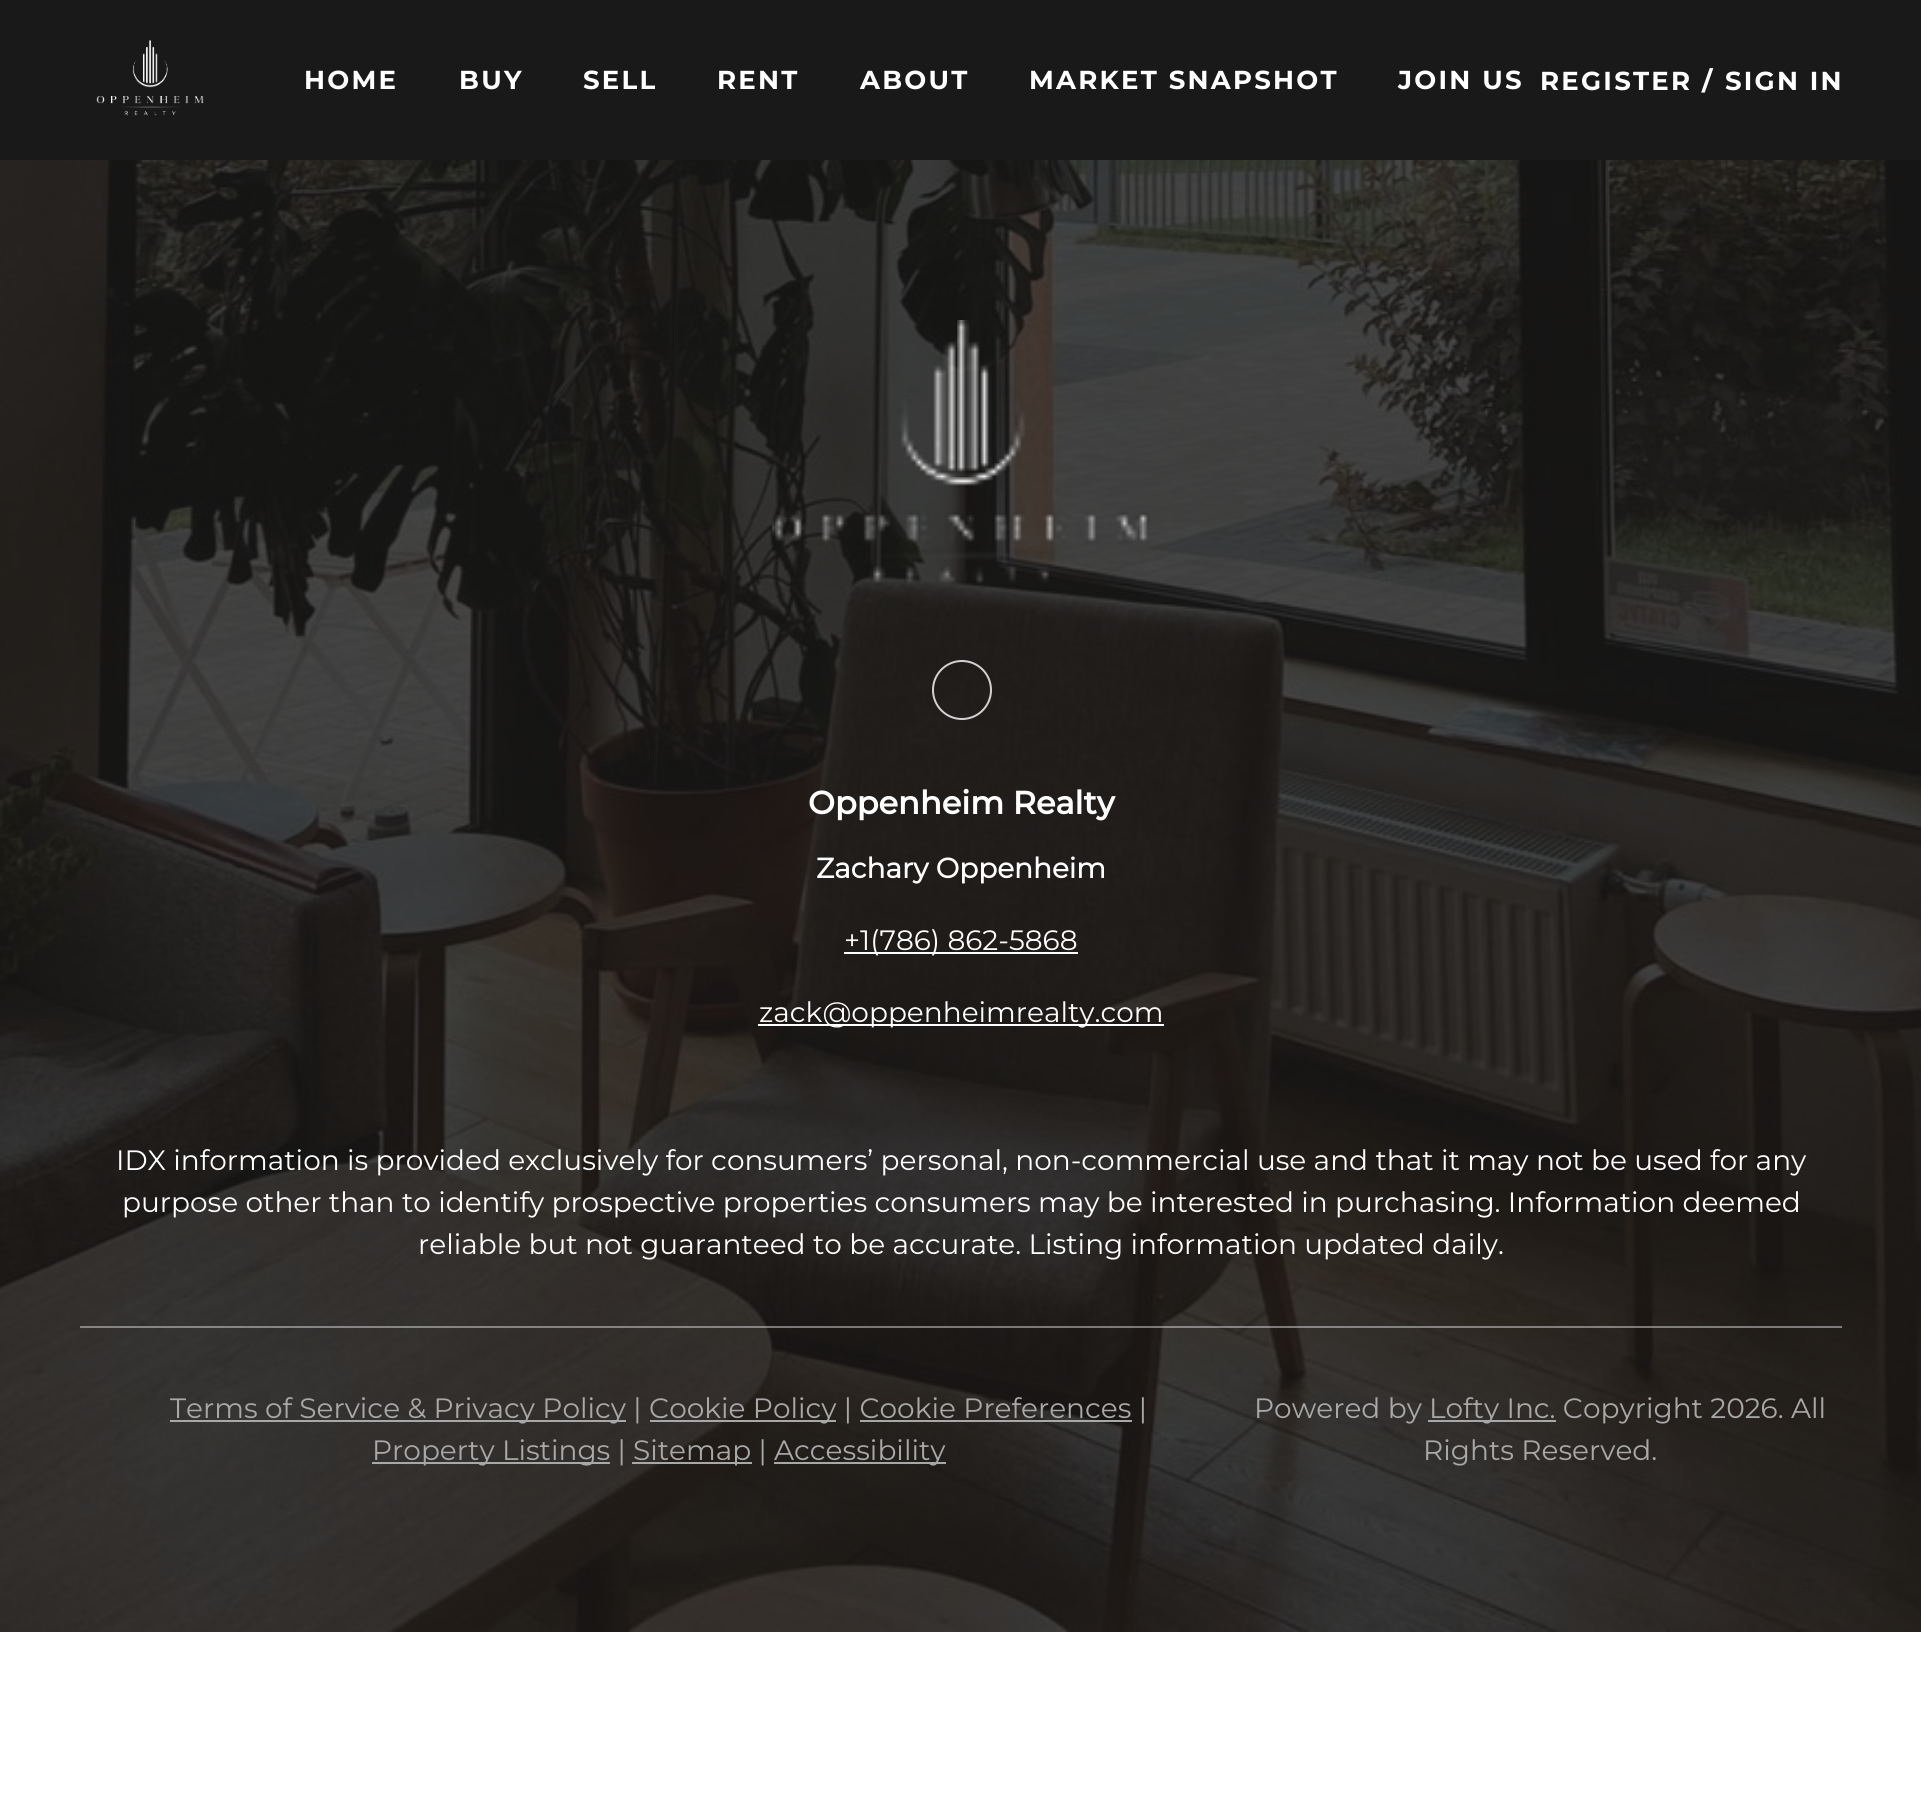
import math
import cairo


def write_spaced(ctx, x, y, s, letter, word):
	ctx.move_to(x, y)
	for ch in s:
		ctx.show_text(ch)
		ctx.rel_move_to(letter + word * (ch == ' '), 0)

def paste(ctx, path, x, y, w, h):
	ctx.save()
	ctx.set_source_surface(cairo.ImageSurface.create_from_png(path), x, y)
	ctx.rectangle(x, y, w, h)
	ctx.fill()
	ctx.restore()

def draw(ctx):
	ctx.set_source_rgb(1, 1, 1)
	ctx.paint()
	ctx.set_source_rgb(0.098, 0.098, 0.098)
	ctx.rectangle(0, 0, 1921, 160)
	ctx.fill()
	paste(ctx, 'media/1.png', 96, 40, 108, 76)
	ctx.select_font_face('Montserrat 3', cairo.FONT_SLANT_NORMAL, cairo.FONT_WEIGHT_BOLD)
	ctx.set_font_size(26)
	ctx.set_source_rgb(1, 1, 1)
	for x, y, s in [
		(304, 89, 'HOME'),
		(459, 89, 'BUY'),
		(583, 89, 'SELL'),
		(717, 89, 'RENT'),
		(860, 89, 'ABOUT'),
		(1029, 89, 'MARKET SNAPSHOT'),
		(1398, 89, 'JOIN US'),
		(1540, 90, 'REGISTER'),
		(1702, 90, '/'),
		(1725, 90, 'SIGN IN'),
	]:
		write_spaced(ctx, x, y, s, 2.25, 0)
	paste(ctx, 'media/2.png', 0, 160, 1921, 1472)
	paste(ctx, 'media/3.png', 772, 320, 378, 265)
	ctx.arc(962, 690, 29, 0, 2 * math.pi)
	ctx.set_source_rgba(1, 1, 1, 0.8)
	ctx.stroke()
	ctx.select_font_face('Montserrat', cairo.FONT_SLANT_NORMAL, cairo.FONT_WEIGHT_BOLD)
	ctx.set_font_size(32)
	ctx.set_source_rgb(1, 1, 1)
	ctx.move_to(808, 814)
	ctx.show_text('Oppenheim Realty')
	ctx.select_font_face('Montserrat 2', cairo.FONT_SLANT_NORMAL, cairo.FONT_WEIGHT_BOLD)
	ctx.set_font_size(28)
	ctx.move_to(816, 878)
	ctx.show_text('Zachary Oppenheim')
	ctx.rectangle(844, 952, 234, 2)
	ctx.fill()
	ctx.select_font_face('Montserrat')
	ctx.move_to(844, 950)
	ctx.show_text('+1(786) 862-5868')
	ctx.rectangle(758, 1024, 406, 2)
	ctx.fill()
	for x, y, s in [
		(759, 1022, 'zack@oppenheimrealty.com'),
		(116, 1170, 'IDX information is provided exclusively for consumers’ personal, non-commercial use and that it may not be used for any'),
		(122, 1212, 'purpose other than to identify prospective properties consumers may be interested in purchasing. Information deemed'),
		(418, 1254, 'reliable but not guaranteed to be accurate. Listing information updated daily.'),
	]:
		ctx.move_to(x, y)
		ctx.show_text(s)
	ctx.set_source_rgba(0.855, 0.855, 0.855, 0.5)
	ctx.rectangle(80, 1326, 1762, 2)
	ctx.fill()
	ctx.set_source_rgb(0.659, 0.659, 0.659)
	ctx.rectangle(170, 1420, 456, 2)
	ctx.fill()
	ctx.move_to(170, 1418)
	ctx.show_text('Terms of Service & Privacy Policy |')
	ctx.rectangle(650, 1420, 186, 2)
	ctx.fill()
	ctx.move_to(649, 1418)
	ctx.show_text('Cookie Policy | Cookie Preferences |')
	ctx.rectangle(860, 1420, 272, 2)
	ctx.fill()
	ctx.rectangle(372, 1462, 238, 2)
	ctx.fill()
	ctx.move_to(372, 1460)
	ctx.show_text('Property Listings |')
	ctx.rectangle(632, 1462, 120, 2)
	ctx.fill()
	ctx.move_to(633, 1460)
	ctx.show_text('Sitemap |')
	ctx.rectangle(774, 1462, 172, 2)
	ctx.fill()
	ctx.move_to(774, 1460)
	ctx.show_text('Accessibility')
	ctx.move_to(1254, 1418)
	ctx.show_text('Powered by')
	ctx.rectangle(1428, 1420, 128, 2)
	ctx.fill()
	ctx.move_to(1429, 1418)
	ctx.show_text('Lofty Inc. Copyright 2026. All')
	ctx.move_to(1423, 1460)
	ctx.show_text('Rights Reserved.')


surface = cairo.ImageSurface(cairo.FORMAT_RGB24, 1921, 1803)
ctx = cairo.Context(surface)
options = cairo.FontOptions()
options.set_hint_metrics(cairo.HINT_METRICS_OFF)
options.set_hint_style(cairo.HINT_STYLE_NONE)
ctx.set_font_options(options)
ctx.set_miter_limit(4)
draw(ctx)
surface.write_to_png('image.png')
